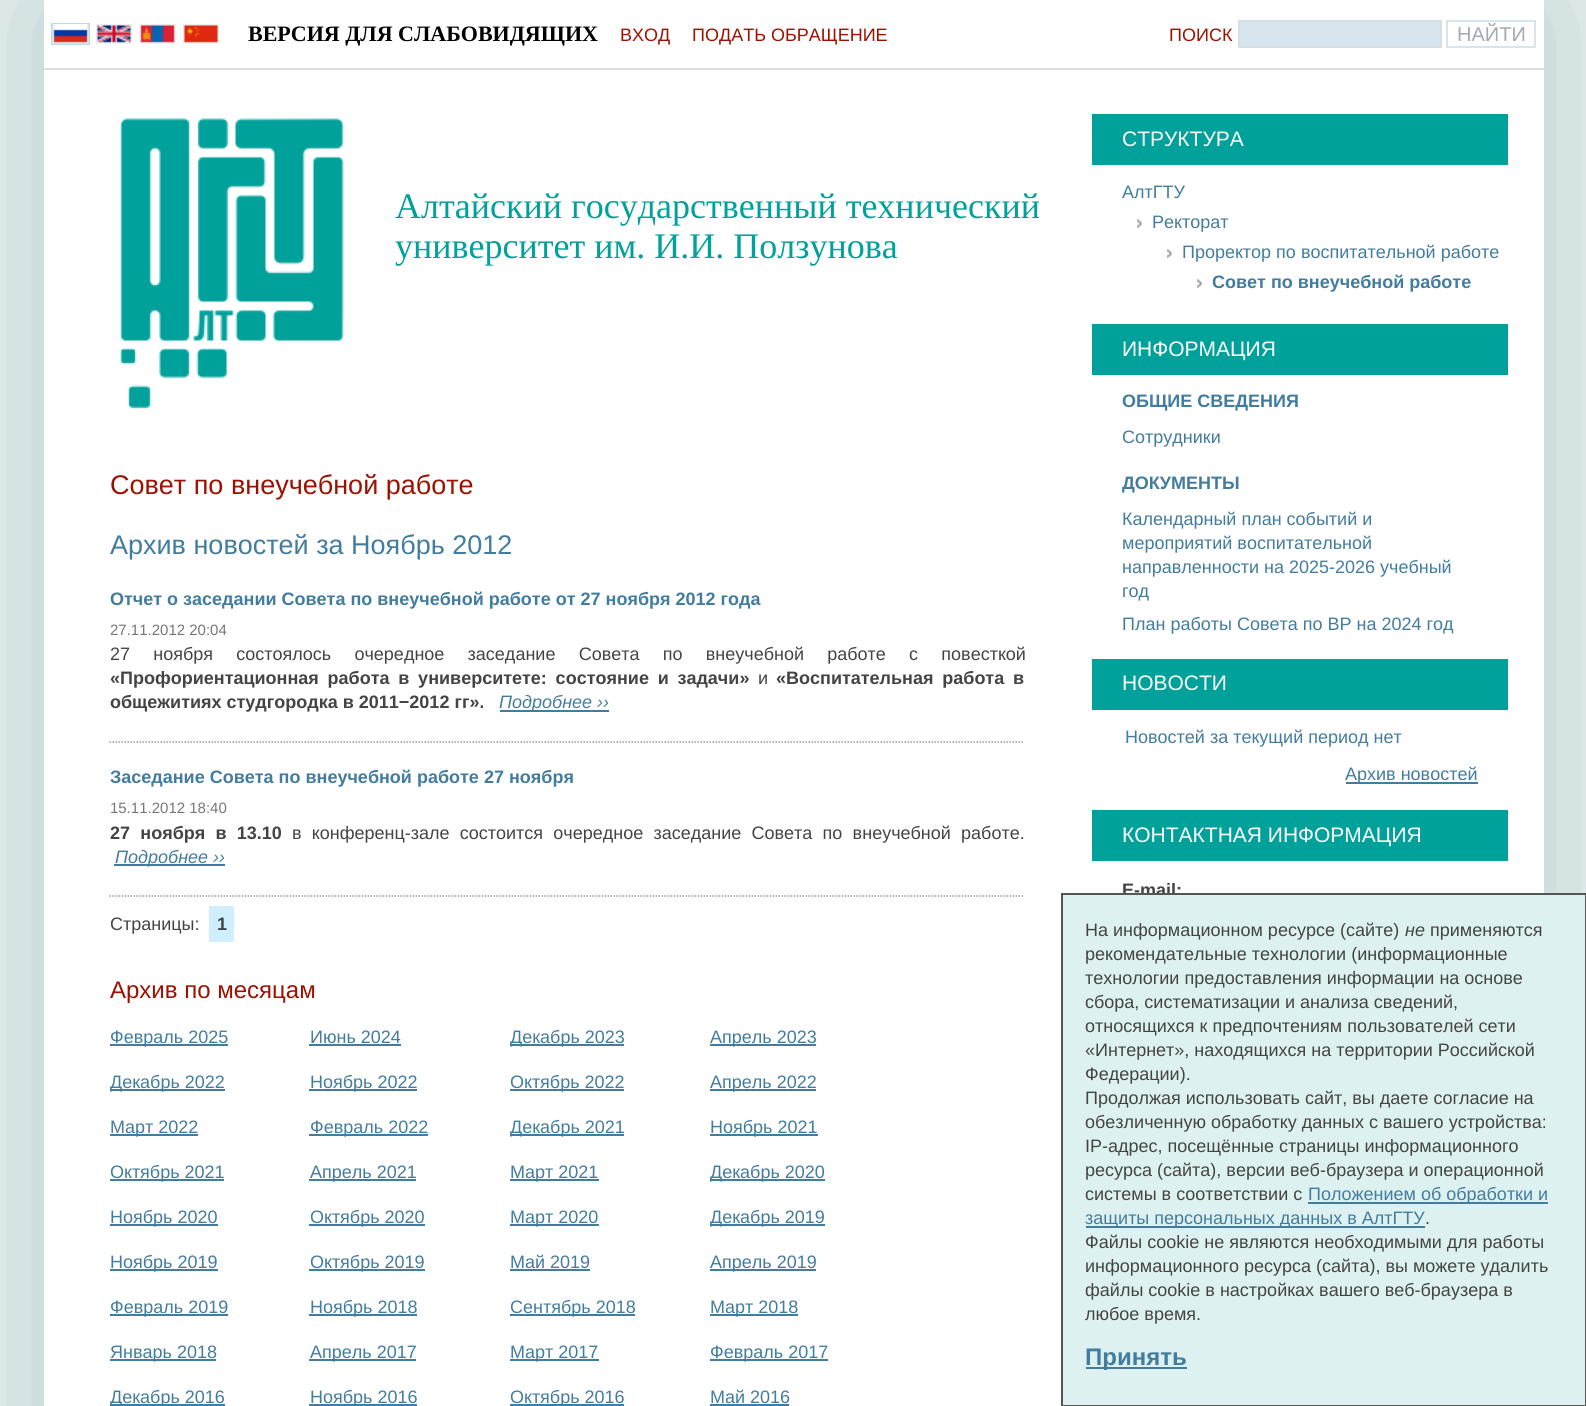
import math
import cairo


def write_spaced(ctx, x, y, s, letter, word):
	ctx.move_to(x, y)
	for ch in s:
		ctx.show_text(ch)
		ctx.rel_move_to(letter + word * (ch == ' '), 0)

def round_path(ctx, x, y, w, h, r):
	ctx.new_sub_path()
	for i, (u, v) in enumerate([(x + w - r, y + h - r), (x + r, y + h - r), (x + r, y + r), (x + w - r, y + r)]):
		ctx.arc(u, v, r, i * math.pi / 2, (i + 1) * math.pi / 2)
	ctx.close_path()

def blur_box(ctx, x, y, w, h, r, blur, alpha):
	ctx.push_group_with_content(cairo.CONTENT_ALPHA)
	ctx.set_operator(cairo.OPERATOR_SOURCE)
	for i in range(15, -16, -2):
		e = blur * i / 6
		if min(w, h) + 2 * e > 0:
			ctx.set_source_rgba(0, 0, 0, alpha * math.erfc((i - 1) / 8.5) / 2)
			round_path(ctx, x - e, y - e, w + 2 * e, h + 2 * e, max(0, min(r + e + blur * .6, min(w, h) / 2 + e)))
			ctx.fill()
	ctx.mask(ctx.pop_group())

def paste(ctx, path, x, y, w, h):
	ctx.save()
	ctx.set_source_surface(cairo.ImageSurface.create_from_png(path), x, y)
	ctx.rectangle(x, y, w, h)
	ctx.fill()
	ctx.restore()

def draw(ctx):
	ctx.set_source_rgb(0.914, 0.949, 0.937)
	ctx.paint()
	ctx.set_source_rgb(0.71, 0.792, 0.808)
	blur_box(ctx, 44, 0, 1500, 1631, 0, 75, 1)
	ctx.set_source_rgb(1, 1, 1)
	ctx.rectangle(44, 0, 1500, 1406)
	ctx.fill()
	ctx.set_source_rgb(0.867, 0.867, 0.867)
	ctx.rectangle(44, 68, 1500, 2)
	ctx.fill()
	ctx.rectangle(52, 24, 37, 20)
	ctx.set_source_rgb(0.733, 0.855, 0.91)
	ctx.stroke()
	paste(ctx, 'media/1.png', 52, 24, 37, 20)
	paste(ctx, 'media/2.png', 96, 24, 36, 20)
	paste(ctx, 'media/3.png', 139, 24, 37, 20)
	paste(ctx, 'media/4.png', 183, 24, 36, 20)
	ctx.select_font_face('Liberation Serif', cairo.FONT_SLANT_NORMAL, cairo.FONT_WEIGHT_BOLD)
	ctx.set_font_size(22)
	ctx.set_source_rgb(0, 0, 0)
	ctx.move_to(248, 41)
	ctx.show_text('ВЕРСИЯ ДЛЯ СЛАБОВИДЯЩИХ')
	ctx.select_font_face('Liberation Sans')
	ctx.set_font_size(18)
	ctx.set_source_rgb(0.612, 0.067, 0)
	for x, y, s in [
		(620, 41, 'ВХОД'),
		(692, 41, 'ПОДАТЬ ОБРАЩЕНИЕ'),
		(1169, 41, 'ПОИСК'),
	]:
		ctx.move_to(x, y)
		ctx.show_text(s)
	ctx.set_source_rgb(0.851, 0.898, 0.925)
	ctx.rectangle(1239, 21, 202, 26)
	ctx.fill_preserve()
	ctx.set_source_rgb(0.839, 0.875, 0.894)
	ctx.stroke()
	ctx.rectangle(1447, 21, 88, 26)
	ctx.set_source_rgb(0.851, 0.898, 0.925)
	ctx.stroke()
	ctx.set_font_size(20)
	ctx.set_source_rgb(0.635, 0.671, 0.69)
	ctx.move_to(1457, 41)
	ctx.show_text('НАЙТИ')
	paste(ctx, 'media/5.png', 119, 118, 225, 291)
	ctx.select_font_face('Liberation Serif')
	ctx.set_font_size(36)
	ctx.set_source_rgb(0, 0.631, 0.604)
	ctx.move_to(395, 218)
	ctx.show_text('Алтайский государственный технический')
	ctx.move_to(395, 258)
	ctx.show_text('университет им. И.И. Ползунова')
	ctx.select_font_face('Liberation Sans')
	ctx.set_font_size(27)
	ctx.set_source_rgb(0.612, 0.067, 0)
	ctx.move_to(110, 494)
	ctx.show_text('Совет по внеучебной работе')
	ctx.set_source_rgb(0.259, 0.486, 0.62)
	ctx.move_to(110, 554)
	ctx.show_text('Архив новостей за Ноябрь 2012')
	ctx.new_path()
	ctx.move_to(109.5, 742)
	ctx.line_to(1024.5, 742)
	ctx.set_source_rgb(0.6, 0.6, 0.6)
	ctx.set_line_width(1.5)
	ctx.set_dash([1.5, 1.5])
	ctx.stroke()
	ctx.select_font_face('Liberation Sans', cairo.FONT_SLANT_NORMAL, cairo.FONT_WEIGHT_BOLD)
	ctx.set_font_size(18)
	ctx.set_source_rgb(0.259, 0.486, 0.62)
	ctx.move_to(110, 605)
	ctx.show_text('Отчет о заседании Совета по внеучебной работе от 27 ноября 2012 года')
	ctx.select_font_face('Liberation Sans')
	ctx.set_font_size(15)
	ctx.set_source_rgb(0.467, 0.467, 0.467)
	ctx.move_to(110, 635)
	ctx.show_text('27.11.2012 20:04')
	ctx.set_font_size(18)
	ctx.set_source_rgb(0.267, 0.267, 0.267)
	write_spaced(ctx, 110, 660, '27 ноября состоялось очередное заседание Совета по внеучебной работе с повесткой', 0, 18.25)
	ctx.select_font_face('Liberation Sans', cairo.FONT_SLANT_NORMAL, cairo.FONT_WEIGHT_BOLD)
	write_spaced(ctx, 110, 684, '«Профориентационная работа в университете: состояние и задачи»', 0, 3.75)
	ctx.select_font_face('Liberation Sans')
	ctx.move_to(758, 684)
	ctx.show_text('и')
	ctx.select_font_face('Liberation Sans', cairo.FONT_SLANT_NORMAL, cairo.FONT_WEIGHT_BOLD)
	write_spaced(ctx, 776, 684, '«Воспитательная работа в', 0, 3.75)
	ctx.move_to(110, 708)
	ctx.show_text('общежитиях студгородка в 2011−2012 гг».')
	ctx.set_source_rgb(0.259, 0.486, 0.62)
	ctx.rectangle(500, 710, 109, 2)
	ctx.fill()
	ctx.select_font_face('Liberation Sans', cairo.FONT_SLANT_ITALIC)
	ctx.move_to(499, 708)
	ctx.show_text('Подробнее ››')
	ctx.new_path()
	ctx.move_to(109.5, 896)
	ctx.line_to(1024.5, 896)
	ctx.set_source_rgb(0.6, 0.6, 0.6)
	ctx.stroke()
	ctx.select_font_face('Liberation Sans', cairo.FONT_SLANT_NORMAL, cairo.FONT_WEIGHT_BOLD)
	ctx.set_source_rgb(0.259, 0.486, 0.62)
	ctx.move_to(110, 783)
	ctx.show_text('Заседание Совета по внеучебной работе 27 ноября')
	ctx.select_font_face('Liberation Sans')
	ctx.set_font_size(15)
	ctx.set_source_rgb(0.467, 0.467, 0.467)
	ctx.move_to(110, 813)
	ctx.show_text('15.11.2012 18:40')
	ctx.select_font_face('Liberation Sans', cairo.FONT_SLANT_NORMAL, cairo.FONT_WEIGHT_BOLD)
	ctx.set_font_size(18)
	ctx.set_source_rgb(0.267, 0.267, 0.267)
	write_spaced(ctx, 110, 839, '27 ноября в 13.10', 0, 5.25)
	ctx.select_font_face('Liberation Sans')
	write_spaced(ctx, 292, 839, 'в конференц-зале состоится очередное заседание Совета по внеучебной работе.', 0, 5.25)
	ctx.set_source_rgb(0.259, 0.486, 0.62)
	ctx.rectangle(114, 864, 111, 2)
	ctx.fill()
	ctx.select_font_face('Liberation Sans', cairo.FONT_SLANT_ITALIC)
	ctx.move_to(115, 863)
	ctx.show_text('Подробнее ››')
	ctx.select_font_face('Liberation Sans')
	ctx.set_source_rgb(0.267, 0.267, 0.267)
	ctx.move_to(110, 930)
	ctx.show_text('Страницы:')
	ctx.set_source_rgb(0.812, 0.933, 1)
	ctx.rectangle(209, 906, 25, 36)
	ctx.fill()
	ctx.select_font_face('Liberation Sans', cairo.FONT_SLANT_NORMAL, cairo.FONT_WEIGHT_BOLD)
	ctx.set_source_rgb(0.267, 0.267, 0.267)
	ctx.move_to(217, 930)
	ctx.show_text('1')
	ctx.select_font_face('Liberation Sans')
	ctx.set_font_size(24)
	ctx.set_source_rgb(0.612, 0.067, 0)
	ctx.move_to(110, 998)
	ctx.show_text('Архив по месяцам')
	ctx.set_source_rgb(0.259, 0.486, 0.62)
	ctx.rectangle(110, 1044, 118, 2)
	ctx.fill()
	ctx.set_font_size(18)
	ctx.move_to(110, 1043)
	ctx.show_text('Февраль 2025')
	ctx.move_to(310, 1043)
	ctx.show_text('Июнь 2024')
	ctx.rectangle(309, 1044, 92, 2)
	ctx.fill()
	ctx.rectangle(510, 1044, 114, 2)
	ctx.fill()
	ctx.move_to(510, 1043)
	ctx.show_text('Декабрь 2023')
	ctx.rectangle(710, 1044, 106, 2)
	ctx.fill()
	ctx.move_to(710, 1043)
	ctx.show_text('Апрель 2023')
	ctx.rectangle(110, 1089, 115, 2)
	ctx.fill()
	ctx.move_to(110, 1088)
	ctx.show_text('Декабрь 2022')
	ctx.rectangle(309, 1089, 108, 2)
	ctx.fill()
	ctx.move_to(310, 1088)
	ctx.show_text('Ноябрь 2022')
	ctx.rectangle(510, 1089, 114, 2)
	ctx.fill()
	ctx.move_to(510, 1088)
	ctx.show_text('Октябрь 2022')
	ctx.rectangle(710, 1089, 106, 2)
	ctx.fill()
	ctx.move_to(710, 1088)
	ctx.show_text('Апрель 2022')
	ctx.rectangle(110, 1134, 88, 2)
	ctx.fill()
	ctx.move_to(110, 1133)
	ctx.show_text('Март 2022')
	ctx.rectangle(309, 1134, 119, 2)
	ctx.fill()
	ctx.move_to(310, 1133)
	ctx.show_text('Февраль 2022')
	ctx.rectangle(510, 1134, 114, 2)
	ctx.fill()
	ctx.move_to(510, 1133)
	ctx.show_text('Декабрь 2021')
	ctx.rectangle(710, 1134, 108, 2)
	ctx.fill()
	ctx.move_to(710, 1133)
	ctx.show_text('Ноябрь 2021')
	ctx.rectangle(110, 1179, 114, 2)
	ctx.fill()
	ctx.move_to(110, 1178)
	ctx.show_text('Октябрь 2021')
	ctx.rectangle(309, 1179, 107, 2)
	ctx.fill()
	ctx.move_to(310, 1178)
	ctx.show_text('Апрель 2021')
	ctx.rectangle(510, 1179, 89, 2)
	ctx.fill()
	ctx.move_to(510, 1178)
	ctx.show_text('Март 2021')
	ctx.rectangle(710, 1179, 115, 2)
	ctx.fill()
	ctx.move_to(710, 1178)
	ctx.show_text('Декабрь 2020')
	ctx.rectangle(110, 1224, 108, 2)
	ctx.fill()
	ctx.move_to(110, 1223)
	ctx.show_text('Ноябрь 2020')
	ctx.rectangle(309, 1224, 116, 2)
	ctx.fill()
	ctx.move_to(310, 1223)
	ctx.show_text('Октябрь 2020')
	ctx.rectangle(510, 1224, 89, 2)
	ctx.fill()
	ctx.move_to(510, 1223)
	ctx.show_text('Март 2020')
	ctx.rectangle(710, 1224, 115, 2)
	ctx.fill()
	ctx.move_to(710, 1223)
	ctx.show_text('Декабрь 2019')
	ctx.rectangle(110, 1269, 108, 2)
	ctx.fill()
	ctx.move_to(110, 1268)
	ctx.show_text('Ноябрь 2019')
	ctx.rectangle(309, 1269, 116, 2)
	ctx.fill()
	ctx.move_to(310, 1268)
	ctx.show_text('Октябрь 2019')
	ctx.move_to(510, 1268)
	ctx.show_text('Май 2019')
	ctx.rectangle(510, 1269, 80, 2)
	ctx.fill()
	ctx.rectangle(710, 1269, 106, 2)
	ctx.fill()
	ctx.move_to(710, 1268)
	ctx.show_text('Апрель 2019')
	ctx.rectangle(110, 1314, 118, 2)
	ctx.fill()
	ctx.move_to(110, 1313)
	ctx.show_text('Февраль 2019')
	ctx.rectangle(309, 1314, 108, 2)
	ctx.fill()
	ctx.move_to(310, 1313)
	ctx.show_text('Ноябрь 2018')
	ctx.rectangle(510, 1314, 125, 2)
	ctx.fill()
	ctx.move_to(510, 1313)
	ctx.show_text('Сентябрь 2018')
	ctx.rectangle(710, 1314, 88, 2)
	ctx.fill()
	ctx.move_to(710, 1313)
	ctx.show_text('Март 2018')
	ctx.rectangle(110, 1359, 106, 2)
	ctx.fill()
	ctx.move_to(110, 1358)
	ctx.show_text('Январь 2018')
	ctx.rectangle(309, 1359, 107, 2)
	ctx.fill()
	ctx.move_to(310, 1358)
	ctx.show_text('Апрель 2017')
	ctx.rectangle(510, 1359, 89, 2)
	ctx.fill()
	ctx.move_to(510, 1358)
	ctx.show_text('Март 2017')
	ctx.rectangle(710, 1359, 118, 2)
	ctx.fill()
	ctx.move_to(710, 1358)
	ctx.show_text('Февраль 2017')
	ctx.rectangle(110, 1404, 115, 2)
	ctx.fill()
	ctx.move_to(110, 1403)
	ctx.show_text('Декабрь 2016')
	ctx.rectangle(309, 1404, 108, 2)
	ctx.fill()
	ctx.move_to(310, 1403)
	ctx.show_text('Ноябрь 2016')
	ctx.rectangle(510, 1404, 114, 2)
	ctx.fill()
	ctx.move_to(510, 1403)
	ctx.show_text('Октябрь 2016')
	ctx.move_to(710, 1403)
	ctx.show_text('Май 2016')
	ctx.rectangle(710, 1404, 79, 2)
	ctx.fill()
	ctx.set_source_rgb(0, 0.631, 0.604)
	ctx.rectangle(1092, 114, 416, 51)
	ctx.fill()
	ctx.set_font_size(21)
	ctx.set_source_rgb(1, 1, 1)
	ctx.move_to(1122, 146)
	ctx.show_text('СТРУКТУРА')
	ctx.set_font_size(18)
	ctx.set_source_rgb(0.259, 0.486, 0.62)
	ctx.move_to(1122, 198)
	ctx.show_text('АлтГТУ')
	paste(ctx, 'media/6.png', 1137, 219, 5, 9)
	ctx.move_to(1152, 228)
	ctx.show_text('Ректорат')
	paste(ctx, 'media/6.png', 1167, 249, 5, 9)
	ctx.move_to(1182, 258)
	ctx.show_text('Проректор по воспитательной работе')
	paste(ctx, 'media/6.png', 1197, 279, 5, 9)
	ctx.select_font_face('Liberation Sans', cairo.FONT_SLANT_NORMAL, cairo.FONT_WEIGHT_BOLD)
	ctx.move_to(1212, 288)
	ctx.show_text('Совет по внеучебной работе')
	ctx.set_source_rgb(0, 0.631, 0.604)
	ctx.rectangle(1092, 324, 416, 51)
	ctx.fill()
	ctx.select_font_face('Liberation Sans')
	ctx.set_font_size(21)
	ctx.set_source_rgb(1, 1, 1)
	ctx.move_to(1122, 356)
	ctx.show_text('ИНФОРМАЦИЯ')
	ctx.select_font_face('Liberation Sans', cairo.FONT_SLANT_NORMAL, cairo.FONT_WEIGHT_BOLD)
	ctx.set_font_size(18)
	ctx.set_source_rgb(0.259, 0.486, 0.62)
	ctx.move_to(1122, 407)
	ctx.show_text('ОБЩИЕ СВЕДЕНИЯ')
	ctx.select_font_face('Liberation Sans')
	ctx.move_to(1122, 443)
	ctx.show_text('Сотрудники')
	ctx.select_font_face('Liberation Sans', cairo.FONT_SLANT_NORMAL, cairo.FONT_WEIGHT_BOLD)
	ctx.move_to(1122, 489)
	ctx.show_text('ДОКУМЕНТЫ')
	ctx.select_font_face('Liberation Sans')
	for x, y, s in [
		(1122, 525, 'Календарный план событий и'),
		(1122, 549, 'мероприятий воспитательной'),
		(1122, 573, 'направленности на 2025-2026 учебный'),
		(1122, 597, 'год'),
		(1122, 630, 'План работы Совета по ВР на 2024 год'),
	]:
		ctx.move_to(x, y)
		ctx.show_text(s)
	ctx.set_source_rgb(0, 0.631, 0.604)
	ctx.rectangle(1092, 659, 416, 51)
	ctx.fill()
	ctx.set_font_size(21)
	ctx.set_source_rgb(1, 1, 1)
	ctx.move_to(1122, 690)
	ctx.show_text('НОВОСТИ')
	ctx.set_font_size(18)
	ctx.set_source_rgb(0.259, 0.486, 0.62)
	ctx.move_to(1125, 743)
	ctx.show_text('Новостей за текущий период нет')
	ctx.rectangle(1346, 782, 132, 2)
	ctx.fill()
	ctx.move_to(1345, 780)
	ctx.show_text('Архив новостей')
	ctx.set_source_rgb(0, 0.631, 0.604)
	ctx.rectangle(1092, 810, 416, 51)
	ctx.fill()
	ctx.set_font_size(21)
	ctx.set_source_rgb(1, 1, 1)
	ctx.move_to(1122, 842)
	ctx.show_text('КОНТАКТНАЯ ИНФОРМАЦИЯ')
	ctx.select_font_face('Liberation Sans', cairo.FONT_SLANT_NORMAL, cairo.FONT_WEIGHT_BOLD)
	ctx.set_font_size(18)
	ctx.set_source_rgb(0.267, 0.267, 0.267)
	ctx.move_to(1122, 896)
	ctx.show_text('E-mail:')
	ctx.set_source_rgb(0.871, 0.945, 0.945)
	ctx.rectangle(1062, 894, 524, 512)
	ctx.fill_preserve()
	ctx.set_source_rgb(0.333, 0.333, 0.333)
	ctx.set_line_width(2)
	ctx.set_dash([])
	ctx.stroke()
	ctx.select_font_face('Liberation Sans')
	ctx.set_source_rgb(0.267, 0.267, 0.267)
	ctx.move_to(1085, 936)
	ctx.show_text('На информационном ресурсе (сайте)')
	ctx.select_font_face('Liberation Sans', cairo.FONT_SLANT_ITALIC)
	ctx.move_to(1405, 936)
	ctx.show_text('не')
	ctx.select_font_face('Liberation Sans')
	for x, y, s in [
		(1430, 936, 'применяются'),
		(1085, 960, 'рекомендательные технологии (информационные'),
		(1085, 984, 'технологии предоставления информации на основе'),
		(1085, 1008, 'сбора, систематизации и анализа сведений,'),
		(1085, 1032, 'относящихся к предпочтениям пользователей сети'),
		(1085, 1056, '«Интернет», находящихся на территории Российской'),
		(1085, 1080, 'Федерации).'),
		(1085, 1104, 'Продолжая использовать сайт, вы даете согласие на'),
		(1085, 1128, 'обезличенную обработку данных с вашего устройства:'),
		(1085, 1152, 'IP-адрес, посещённые страницы информационного'),
		(1085, 1176, 'ресурса (сайта), версии веб-браузера и операционной'),
		(1085, 1200, 'системы в соответствии с'),
	]:
		ctx.move_to(x, y)
		ctx.show_text(s)
	ctx.set_source_rgb(0.259, 0.486, 0.62)
	ctx.rectangle(1308, 1202, 240, 2)
	ctx.fill()
	ctx.move_to(1308, 1200)
	ctx.show_text('Положением об обработки и')
	ctx.rectangle(1086, 1226, 339, 2)
	ctx.fill()
	ctx.move_to(1085, 1224)
	ctx.show_text('защиты персональных данных в АлтГТУ')
	ctx.set_source_rgb(0.267, 0.267, 0.267)
	for x, y, s in [
		(1425, 1224, '.'),
		(1085, 1248, 'Файлы cookie не являются необходимыми для работы'),
		(1085, 1272, 'информационного ресурса (сайта), вы можете удалить'),
		(1085, 1296, 'файлы cookie в настройках вашего веб-браузера в'),
		(1085, 1320, 'любое время.'),
	]:
		ctx.move_to(x, y)
		ctx.show_text(s)
	ctx.set_source_rgb(0.259, 0.486, 0.62)
	ctx.rectangle(1086, 1367, 101, 2)
	ctx.fill()
	ctx.select_font_face('Liberation Sans', cairo.FONT_SLANT_NORMAL, cairo.FONT_WEIGHT_BOLD)
	ctx.set_font_size(24)
	ctx.move_to(1085, 1365)
	ctx.show_text('Принять')


surface = cairo.ImageSurface(cairo.FORMAT_RGB24, 1586, 1406)
ctx = cairo.Context(surface)
options = cairo.FontOptions()
options.set_hint_metrics(cairo.HINT_METRICS_OFF)
options.set_hint_style(cairo.HINT_STYLE_NONE)
ctx.set_font_options(options)
ctx.set_miter_limit(4)
draw(ctx)
surface.write_to_png('image.png')
